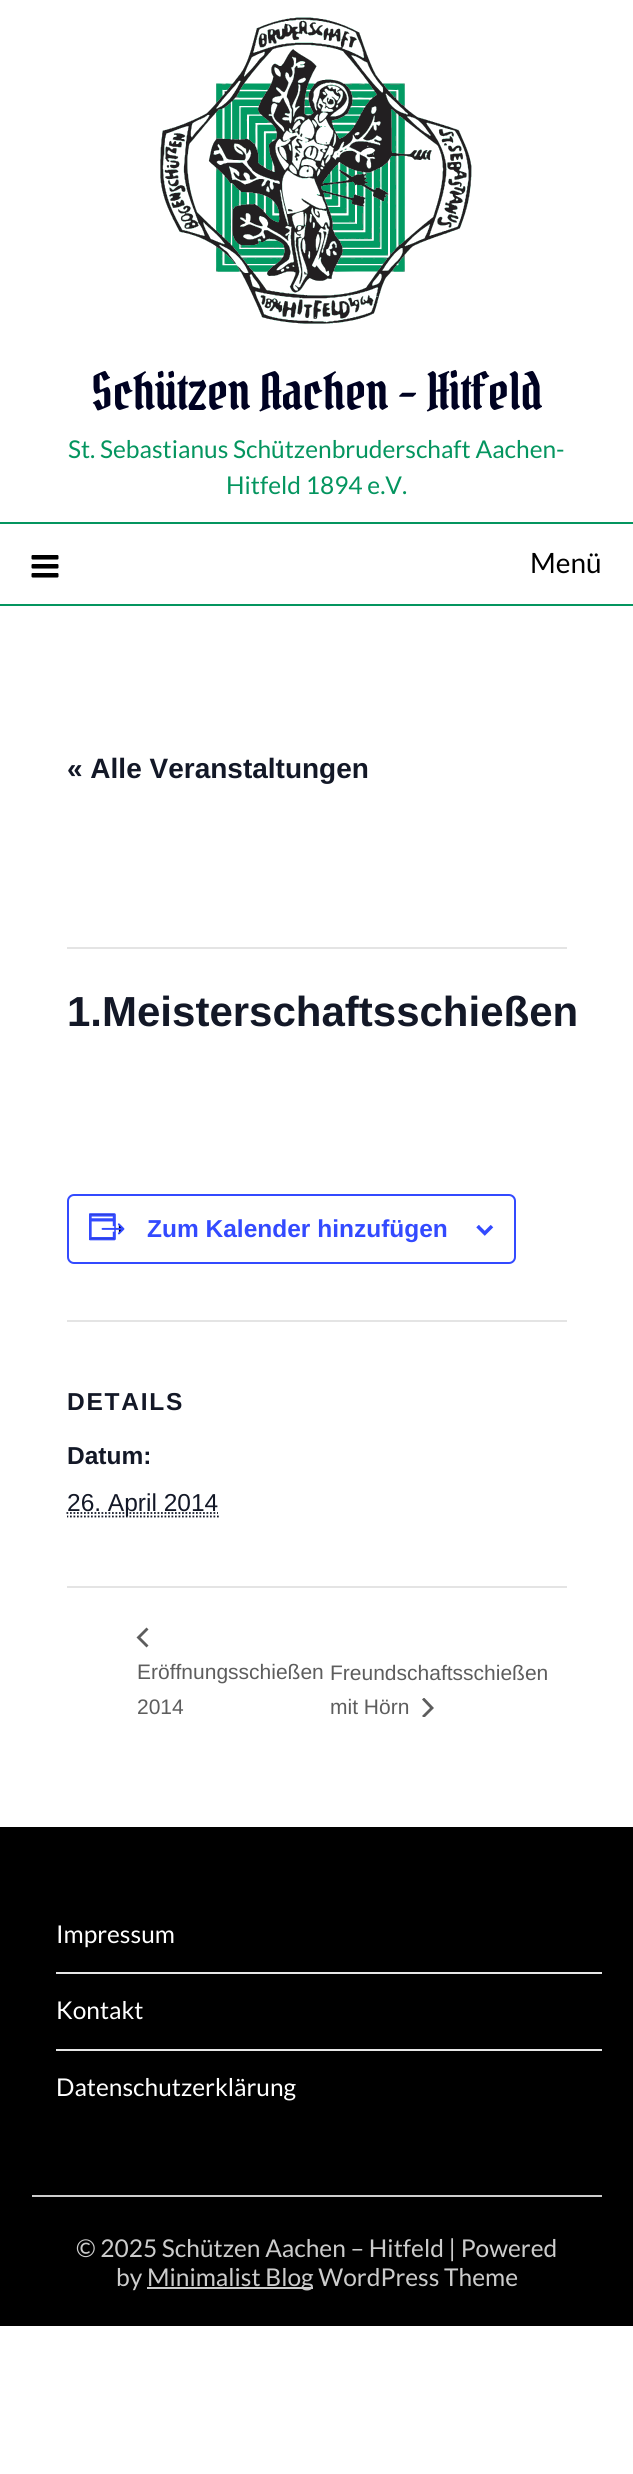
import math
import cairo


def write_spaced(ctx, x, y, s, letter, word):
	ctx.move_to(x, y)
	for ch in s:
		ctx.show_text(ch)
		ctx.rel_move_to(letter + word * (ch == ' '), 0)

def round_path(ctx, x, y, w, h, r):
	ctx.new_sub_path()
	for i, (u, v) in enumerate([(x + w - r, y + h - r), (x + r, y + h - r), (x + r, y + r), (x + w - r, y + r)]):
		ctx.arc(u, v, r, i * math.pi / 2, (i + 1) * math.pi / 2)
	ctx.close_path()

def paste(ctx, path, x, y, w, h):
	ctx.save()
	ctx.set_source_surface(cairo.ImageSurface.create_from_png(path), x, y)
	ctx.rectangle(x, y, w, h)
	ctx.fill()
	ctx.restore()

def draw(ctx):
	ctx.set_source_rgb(1, 1, 1)
	ctx.paint()
	paste(ctx, 'media/1.png', 160, 17, 312, 307)
	ctx.select_font_face('Pirata One')
	ctx.set_font_size(50.75)
	ctx.set_source_rgb(0, 0.008, 0.133)
	ctx.move_to(91, 410)
	ctx.show_text('Schützen Aachen – Hitfeld')
	ctx.select_font_face('Lato')
	ctx.set_font_size(24.5)
	ctx.set_source_rgb(0.016, 0.584, 0.373)
	ctx.move_to(68, 458)
	ctx.show_text('St. Sebastianus Schützenbruderschaft Aachen-')
	ctx.move_to(226, 494)
	ctx.show_text('Hitfeld 1894 e.V.')
	ctx.rectangle(0, 522, 633, 2)
	ctx.fill()
	ctx.rectangle(0, 604, 633, 2)
	ctx.fill()
	paste(ctx, 'media/2.png', 31, 555, 28, 23)
	ctx.set_font_size(28)
	ctx.set_source_rgb(0, 0, 0)
	ctx.move_to(530, 573)
	ctx.show_text('Menü')
	ctx.select_font_face('Liberation Sans', cairo.FONT_SLANT_NORMAL, cairo.FONT_WEIGHT_BOLD)
	ctx.set_source_rgb(0.078, 0.094, 0.153)
	ctx.move_to(67, 778)
	ctx.show_text('« Alle Veranstaltungen')
	ctx.set_source_rgb(0.894, 0.894, 0.894)
	ctx.rectangle(67, 947, 500, 2)
	ctx.fill()
	ctx.set_font_size(42)
	ctx.set_source_rgb(0.078, 0.094, 0.153)
	ctx.move_to(67, 1026)
	ctx.show_text('1.Meisterschaftsschießen')
	round_path(ctx, 68, 1195, 447, 68, 6)
	ctx.set_source_rgb(0.2, 0.29, 1)
	ctx.stroke()
	paste(ctx, 'media/3.png', 89, 1213, 36, 28)
	ctx.set_font_size(24.5)
	ctx.move_to(147, 1237)
	ctx.show_text('Zum Kalender hinzufügen')
	paste(ctx, 'media/4.png', 476, 1225, 18, 11)
	ctx.set_source_rgb(0.894, 0.894, 0.894)
	ctx.rectangle(67, 1320, 500, 2)
	ctx.fill()
	ctx.set_source_rgb(0.078, 0.094, 0.153)
	write_spaced(ctx, 67, 1410, 'DETAILS', 1.75, 0)
	ctx.move_to(67, 1464)
	ctx.show_text('Datum:')
	ctx.save()
	ctx.rectangle(67, 1138, 500, 406)
	ctx.clip()
	ctx.new_path()
	ctx.move_to(66.5, 1516.5)
	ctx.line_to(219, 1516.5)
	ctx.set_line_width(1.8)
	ctx.set_dash([1.75, 1.75])
	ctx.stroke()
	ctx.restore()
	ctx.new_path()
	ctx.move_to(66.5, 1513)
	ctx.line_to(218, 1513)
	ctx.set_line_width(1.8)
	ctx.set_dash([1.75, 1.75])
	ctx.stroke()
	ctx.select_font_face('Liberation Sans')
	ctx.move_to(67, 1511)
	ctx.show_text('26. April 2014')
	ctx.set_source_rgb(0.894, 0.894, 0.894)
	ctx.rectangle(67, 1586, 500, 2)
	ctx.fill()
	ctx.set_source_rgb(0.365, 0.365, 0.365)
	ctx.new_path()
	ctx.move_to(148.5, 1645.5)
	ctx.line_to(146.5, 1647.5)
	ctx.line_to(136.5, 1637.5)
	ctx.line_to(146.5, 1627.5)
	ctx.line_to(148.5, 1629.5)
	ctx.line_to(140.5, 1637.5)
	ctx.close_path()
	ctx.fill()
	ctx.set_font_size(21)
	for x, y, s in [
		(137, 1679, 'Eröffnungsschießen'),
		(137, 1714, '2014'),
		(330, 1680, 'Freundschaftsschießen'),
		(330, 1714, 'mit Hörn'),
	]:
		ctx.move_to(x, y)
		ctx.show_text(s)
	ctx.save()
	ctx.rectangle(422, 1698, 12, 19)
	ctx.clip()
	ctx.new_path()
	ctx.move_to(422, 1699.5)
	ctx.line_to(424, 1697.5)
	ctx.line_to(434, 1708)
	ctx.line_to(424, 1718)
	ctx.line_to(422, 1716)
	ctx.line_to(430, 1708)
	ctx.close_path()
	ctx.fill()
	ctx.restore()
	ctx.set_source_rgb(0, 0, 0)
	ctx.rectangle(0, 1827, 633, 499)
	ctx.fill()
	ctx.set_source_rgb(0.902, 0.902, 0.902)
	ctx.rectangle(56, 1972, 546, 2)
	ctx.fill()
	ctx.select_font_face('Lato')
	ctx.set_font_size(24.5)
	ctx.set_source_rgb(1, 1, 1)
	ctx.move_to(56, 1943)
	ctx.show_text('Impressum')
	ctx.set_source_rgb(0.902, 0.902, 0.902)
	ctx.rectangle(56, 2049, 546, 2)
	ctx.fill()
	ctx.set_source_rgb(1, 1, 1)
	ctx.move_to(56, 2019)
	ctx.show_text('Kontakt')
	ctx.move_to(56, 2096)
	ctx.show_text('Datenschutzerklärung')
	ctx.set_source_rgb(0.8, 0.8, 0.8)
	ctx.rectangle(32, 2195, 570, 2)
	ctx.fill()
	ctx.move_to(76, 2257)
	ctx.show_text('© 2025 Schützen Aachen – Hitfeld | Powered')
	ctx.move_to(116, 2286)
	ctx.show_text('by')
	ctx.rectangle(147, 2287, 166, 2)
	ctx.fill()
	ctx.move_to(147, 2286)
	ctx.show_text('Minimalist Blog WordPress Theme')


surface = cairo.ImageSurface(cairo.FORMAT_RGB24, 633, 2474)
ctx = cairo.Context(surface)
options = cairo.FontOptions()
options.set_hint_metrics(cairo.HINT_METRICS_OFF)
options.set_hint_style(cairo.HINT_STYLE_NONE)
ctx.set_font_options(options)
ctx.set_miter_limit(4)
draw(ctx)
surface.write_to_png('image.png')
